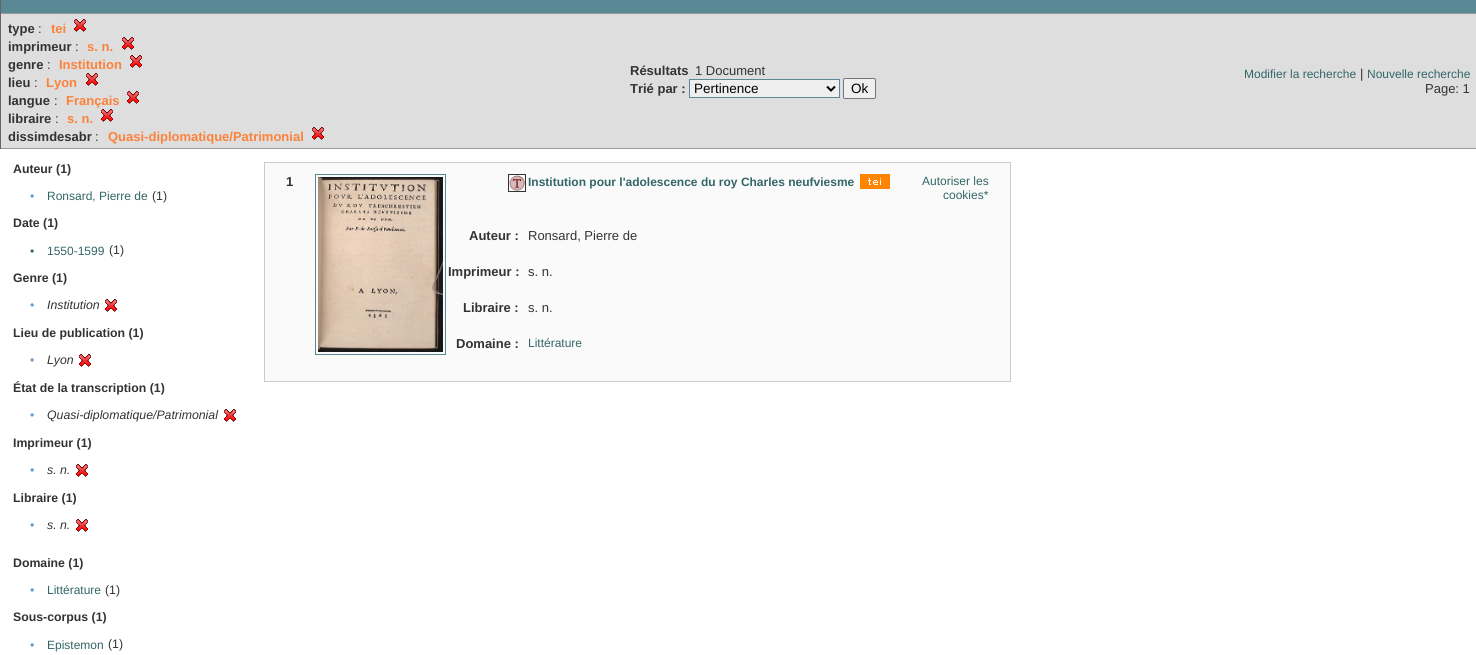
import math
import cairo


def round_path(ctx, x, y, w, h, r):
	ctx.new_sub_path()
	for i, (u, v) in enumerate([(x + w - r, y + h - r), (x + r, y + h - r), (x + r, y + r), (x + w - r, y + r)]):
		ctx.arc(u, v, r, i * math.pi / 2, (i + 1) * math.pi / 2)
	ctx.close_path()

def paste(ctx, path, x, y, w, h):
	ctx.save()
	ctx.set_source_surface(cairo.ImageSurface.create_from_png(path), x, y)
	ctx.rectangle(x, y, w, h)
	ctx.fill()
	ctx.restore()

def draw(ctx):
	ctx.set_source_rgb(0.349, 0.537, 0.584)
	ctx.paint()
	ctx.set_source_rgb(0.4, 0.4, 0.4)
	ctx.rectangle(0, 0, 1, 13)
	ctx.fill()
	ctx.set_source_rgb(0.871, 0.871, 0.875)
	ctx.rectangle(1, 14, 1475, 134)
	ctx.fill()
	ctx.set_source_rgb(0.6, 0.6, 0.6)
	ctx.rectangle(0, 13, 1476, 1)
	ctx.rectangle(0, 148, 1476, 1)
	ctx.fill()
	ctx.set_source_rgb(0.4, 0.4, 0.4)
	ctx.rectangle(0, 13, 1, 136)
	ctx.fill()
	ctx.select_font_face('Liberation Sans', cairo.FONT_SLANT_NORMAL, cairo.FONT_WEIGHT_BOLD)
	ctx.set_font_size(13)
	ctx.set_source_rgb(0.2, 0.2, 0.2)
	ctx.move_to(8, 33)
	ctx.show_text('type')
	ctx.select_font_face('Liberation Sans')
	ctx.move_to(38, 33)
	ctx.show_text(':')
	ctx.select_font_face('Liberation Sans', cairo.FONT_SLANT_NORMAL, cairo.FONT_WEIGHT_BOLD)
	ctx.set_source_rgb(0.992, 0.51, 0.224)
	ctx.move_to(51, 33)
	ctx.show_text('tei')
	paste(ctx, 'media/1.png', 74, 19, 12, 13)
	ctx.set_source_rgb(0.2, 0.2, 0.2)
	ctx.move_to(8, 51)
	ctx.show_text('imprimeur')
	ctx.select_font_face('Liberation Sans')
	ctx.move_to(75, 51)
	ctx.show_text(':')
	ctx.select_font_face('Liberation Sans', cairo.FONT_SLANT_NORMAL, cairo.FONT_WEIGHT_BOLD)
	ctx.set_source_rgb(0.992, 0.51, 0.224)
	ctx.move_to(87, 51)
	ctx.show_text('s. n.')
	paste(ctx, 'media/1.png', 122, 37, 12, 13)
	ctx.set_source_rgb(0.2, 0.2, 0.2)
	ctx.move_to(8, 69)
	ctx.show_text('genre')
	ctx.select_font_face('Liberation Sans')
	ctx.move_to(47, 69)
	ctx.show_text(':')
	ctx.select_font_face('Liberation Sans', cairo.FONT_SLANT_NORMAL, cairo.FONT_WEIGHT_BOLD)
	ctx.set_source_rgb(0.992, 0.51, 0.224)
	ctx.move_to(59, 69)
	ctx.show_text('Institution')
	paste(ctx, 'media/1.png', 130, 55, 12, 13)
	ctx.set_source_rgb(0.2, 0.2, 0.2)
	ctx.move_to(8, 87)
	ctx.show_text('lieu')
	ctx.select_font_face('Liberation Sans')
	ctx.move_to(34, 87)
	ctx.show_text(':')
	ctx.select_font_face('Liberation Sans', cairo.FONT_SLANT_NORMAL, cairo.FONT_WEIGHT_BOLD)
	ctx.set_source_rgb(0.992, 0.51, 0.224)
	ctx.move_to(46, 87)
	ctx.show_text('Lyon')
	paste(ctx, 'media/1.png', 86, 73, 12, 13)
	ctx.set_source_rgb(0.2, 0.2, 0.2)
	ctx.move_to(8, 105)
	ctx.show_text('langue')
	ctx.select_font_face('Liberation Sans')
	ctx.move_to(54, 105)
	ctx.show_text(':')
	ctx.select_font_face('Liberation Sans', cairo.FONT_SLANT_NORMAL, cairo.FONT_WEIGHT_BOLD)
	ctx.set_source_rgb(0.992, 0.51, 0.224)
	ctx.move_to(66, 105)
	ctx.show_text('Français')
	paste(ctx, 'media/1.png', 127, 91, 12, 13)
	ctx.set_source_rgb(0.2, 0.2, 0.2)
	ctx.move_to(8, 123)
	ctx.show_text('libraire')
	ctx.select_font_face('Liberation Sans')
	ctx.move_to(55, 123)
	ctx.show_text(':')
	ctx.select_font_face('Liberation Sans', cairo.FONT_SLANT_NORMAL, cairo.FONT_WEIGHT_BOLD)
	ctx.set_source_rgb(0.992, 0.51, 0.224)
	ctx.move_to(67, 123)
	ctx.show_text('s. n.')
	paste(ctx, 'media/1.png', 101, 109, 12, 13)
	ctx.set_source_rgb(0.2, 0.2, 0.2)
	ctx.move_to(8, 141)
	ctx.show_text('dissimdesabr')
	ctx.select_font_face('Liberation Sans')
	ctx.move_to(95, 141)
	ctx.show_text(':')
	ctx.select_font_face('Liberation Sans', cairo.FONT_SLANT_NORMAL, cairo.FONT_WEIGHT_BOLD)
	ctx.set_source_rgb(0.992, 0.51, 0.224)
	ctx.move_to(108, 141)
	ctx.show_text('Quasi-diplomatique/Patrimonial')
	paste(ctx, 'media/1.png', 312, 127, 12, 13)
	ctx.set_source_rgb(0.2, 0.2, 0.2)
	ctx.move_to(630, 75)
	ctx.show_text('Résultats')
	ctx.select_font_face('Liberation Sans')
	ctx.move_to(695, 75)
	ctx.show_text('1 Document')
	ctx.select_font_face('Liberation Sans', cairo.FONT_SLANT_NORMAL, cairo.FONT_WEIGHT_BOLD)
	ctx.move_to(630, 93)
	ctx.show_text('Trié par :')
	ctx.set_source_rgb(0.937, 0.937, 0.937)
	ctx.rectangle(689.5, 79.5, 150, 18)
	ctx.fill_preserve()
	ctx.set_source_rgb(0.349, 0.537, 0.584)
	ctx.set_line_width(1)
	ctx.stroke()
	ctx.new_path()
	ctx.move_to(827, 86.5)
	ctx.line_to(831, 90.5)
	ctx.line_to(835, 86.5)
	ctx.set_source_rgb(0, 0, 0)
	ctx.set_line_width(2)
	ctx.stroke()
	ctx.select_font_face('Liberation Sans')
	ctx.set_font_size(13.5)
	ctx.move_to(694, 93)
	ctx.show_text('Pertinence')
	ctx.set_source_rgb(0.937, 0.937, 0.937)
	round_path(ctx, 843.5, 78.5, 32, 20, 1.5)
	ctx.fill_preserve()
	ctx.set_source_rgb(0.463, 0.463, 0.463)
	ctx.set_line_width(1)
	ctx.stroke()
	ctx.set_source_rgb(0, 0, 0)
	ctx.move_to(851, 93)
	ctx.show_text('Ok')
	ctx.set_font_size(12)
	ctx.set_source_rgb(0.2, 0.4, 0.4)
	ctx.move_to(1244, 78)
	ctx.show_text('Modifier la recherche')
	ctx.set_font_size(13)
	ctx.set_source_rgb(0.2, 0.2, 0.2)
	ctx.move_to(1360, 78)
	ctx.show_text('|')
	ctx.set_font_size(12)
	ctx.set_source_rgb(0.2, 0.4, 0.4)
	ctx.move_to(1367, 78)
	ctx.show_text('Nouvelle recherche')
	ctx.set_font_size(13)
	ctx.set_source_rgb(0.2, 0.2, 0.2)
	ctx.move_to(1425, 93)
	ctx.show_text('Page: 1')
	ctx.set_source_rgb(1, 1, 1)
	ctx.rectangle(0, 149, 1476, 506)
	ctx.fill()
	ctx.select_font_face('Liberation Sans', cairo.FONT_SLANT_NORMAL, cairo.FONT_WEIGHT_BOLD)
	ctx.set_font_size(12.3)
	ctx.set_source_rgb(0.2, 0.2, 0.2)
	ctx.move_to(13, 173)
	ctx.show_text('Auteur (1)')
	ctx.select_font_face('Liberation Sans')
	ctx.set_source_rgb(0.4, 0.6, 0.8)
	ctx.move_to(30, 200)
	ctx.show_text('•')
	ctx.set_font_size(12)
	ctx.set_source_rgb(0.2, 0.4, 0.4)
	ctx.move_to(47, 200)
	ctx.show_text('Ronsard, Pierre de')
	ctx.set_font_size(12.3)
	ctx.set_source_rgb(0.2, 0.2, 0.2)
	ctx.move_to(152, 200)
	ctx.show_text('(1)')
	ctx.select_font_face('Liberation Sans', cairo.FONT_SLANT_NORMAL, cairo.FONT_WEIGHT_BOLD)
	ctx.move_to(13, 227)
	ctx.show_text('Date (1)')
	ctx.select_font_face('Liberation Sans')
	ctx.set_font_size(12)
	ctx.set_source_rgb(0.2, 0.4, 0.4)
	ctx.move_to(30, 255)
	ctx.show_text('•')
	ctx.move_to(47, 255)
	ctx.show_text('1550-1599')
	ctx.set_font_size(12.3)
	ctx.set_source_rgb(0.2, 0.2, 0.2)
	ctx.move_to(109, 254)
	ctx.show_text('(1)')
	ctx.select_font_face('Liberation Sans', cairo.FONT_SLANT_NORMAL, cairo.FONT_WEIGHT_BOLD)
	ctx.move_to(13, 282)
	ctx.show_text('Genre (1)')
	ctx.select_font_face('Liberation Sans')
	ctx.set_source_rgb(0.4, 0.6, 0.8)
	ctx.move_to(30, 309)
	ctx.show_text('•')
	ctx.select_font_face('Liberation Sans', cairo.FONT_SLANT_ITALIC)
	ctx.set_source_rgb(0.2, 0.2, 0.2)
	ctx.move_to(47, 309)
	ctx.show_text('Institution')
	paste(ctx, 'media/2.png', 105, 299, 12, 13)
	ctx.select_font_face('Liberation Sans', cairo.FONT_SLANT_NORMAL, cairo.FONT_WEIGHT_BOLD)
	ctx.move_to(13, 337)
	ctx.show_text('Lieu de publication (1)')
	ctx.select_font_face('Liberation Sans')
	ctx.set_source_rgb(0.4, 0.6, 0.8)
	ctx.move_to(30, 364)
	ctx.show_text('•')
	ctx.select_font_face('Liberation Sans', cairo.FONT_SLANT_ITALIC)
	ctx.set_source_rgb(0.2, 0.2, 0.2)
	ctx.move_to(47, 364)
	ctx.show_text('Lyon')
	paste(ctx, 'media/2.png', 79, 354, 12, 13)
	ctx.select_font_face('Liberation Sans', cairo.FONT_SLANT_NORMAL, cairo.FONT_WEIGHT_BOLD)
	ctx.move_to(13, 392)
	ctx.show_text('État de la transcription (1)')
	ctx.select_font_face('Liberation Sans')
	ctx.set_source_rgb(0.4, 0.6, 0.8)
	ctx.move_to(30, 419)
	ctx.show_text('•')
	ctx.select_font_face('Liberation Sans', cairo.FONT_SLANT_ITALIC)
	ctx.set_source_rgb(0.2, 0.2, 0.2)
	ctx.move_to(47, 419)
	ctx.show_text('Quasi-diplomatique/Patrimonial')
	paste(ctx, 'media/2.png', 224, 409, 12, 13)
	ctx.select_font_face('Liberation Sans', cairo.FONT_SLANT_NORMAL, cairo.FONT_WEIGHT_BOLD)
	ctx.move_to(13, 447)
	ctx.show_text('Imprimeur (1)')
	ctx.select_font_face('Liberation Sans')
	ctx.set_source_rgb(0.4, 0.6, 0.8)
	ctx.move_to(30, 474)
	ctx.show_text('•')
	ctx.select_font_face('Liberation Sans', cairo.FONT_SLANT_ITALIC)
	ctx.set_source_rgb(0.2, 0.2, 0.2)
	ctx.move_to(47, 474)
	ctx.show_text('s. n.')
	paste(ctx, 'media/2.png', 76, 464, 12, 13)
	ctx.select_font_face('Liberation Sans', cairo.FONT_SLANT_NORMAL, cairo.FONT_WEIGHT_BOLD)
	ctx.move_to(13, 502)
	ctx.show_text('Libraire (1)')
	ctx.select_font_face('Liberation Sans')
	ctx.set_source_rgb(0.4, 0.6, 0.8)
	ctx.move_to(30, 529)
	ctx.show_text('•')
	ctx.select_font_face('Liberation Sans', cairo.FONT_SLANT_ITALIC)
	ctx.set_source_rgb(0.2, 0.2, 0.2)
	ctx.move_to(47, 529)
	ctx.show_text('s. n.')
	paste(ctx, 'media/2.png', 76, 519, 12, 13)
	ctx.select_font_face('Liberation Sans', cairo.FONT_SLANT_NORMAL, cairo.FONT_WEIGHT_BOLD)
	ctx.move_to(13, 567)
	ctx.show_text('Domaine (1)')
	ctx.select_font_face('Liberation Sans')
	ctx.set_source_rgb(0.4, 0.6, 0.8)
	ctx.move_to(30, 594)
	ctx.show_text('•')
	ctx.set_font_size(12)
	ctx.set_source_rgb(0.2, 0.4, 0.4)
	ctx.move_to(47, 594)
	ctx.show_text('Littérature')
	ctx.set_font_size(12.3)
	ctx.set_source_rgb(0.2, 0.2, 0.2)
	ctx.move_to(105, 594)
	ctx.show_text('(1)')
	ctx.select_font_face('Liberation Sans', cairo.FONT_SLANT_NORMAL, cairo.FONT_WEIGHT_BOLD)
	ctx.move_to(13, 621)
	ctx.show_text('Sous-corpus (1)')
	ctx.select_font_face('Liberation Sans')
	ctx.set_source_rgb(0.4, 0.6, 0.8)
	ctx.move_to(30, 649)
	ctx.show_text('•')
	ctx.set_font_size(12)
	ctx.set_source_rgb(0.2, 0.4, 0.4)
	ctx.move_to(47, 649)
	ctx.show_text('Epistemon')
	ctx.set_font_size(12.3)
	ctx.set_source_rgb(0.2, 0.2, 0.2)
	ctx.move_to(108, 648)
	ctx.show_text('(1)')
	ctx.set_source_rgb(0.98, 0.98, 0.984)
	ctx.rectangle(264.5, 162.5, 746, 219)
	ctx.fill_preserve()
	ctx.set_source_rgb(0.8, 0.8, 0.8)
	ctx.stroke()
	ctx.select_font_face('Liberation Sans', cairo.FONT_SLANT_NORMAL, cairo.FONT_WEIGHT_BOLD)
	ctx.set_font_size(13)
	ctx.set_source_rgb(0.2, 0.2, 0.2)
	ctx.move_to(286, 186)
	ctx.show_text('1')
	ctx.rectangle(315.5, 174.5, 130, 180)
	ctx.set_source_rgb(0.349, 0.537, 0.584)
	ctx.stroke()
	paste(ctx, 'media/3.png', 318, 177, 125, 175)
	ctx.rectangle(508.5, 174.5, 17, 17)
	ctx.set_source_rgb(0.2, 0.2, 0.2)
	ctx.stroke()
	paste(ctx, 'media/4.png', 509, 175, 16, 16)
	ctx.set_font_size(12)
	ctx.set_source_rgb(0.2, 0.4, 0.4)
	ctx.move_to(528, 186)
	ctx.show_text('Institution pour l\'adolescence du roy Charles neufviesme')
	paste(ctx, 'media/5.png', 860, 174, 30, 15)
	ctx.select_font_face('Liberation Sans')
	ctx.move_to(922, 185)
	ctx.show_text('Autoriser les')
	ctx.move_to(943, 199)
	ctx.show_text('cookies*')
	ctx.select_font_face('Liberation Sans', cairo.FONT_SLANT_NORMAL, cairo.FONT_WEIGHT_BOLD)
	ctx.set_font_size(13)
	ctx.set_source_rgb(0.2, 0.2, 0.2)
	ctx.move_to(469, 240)
	ctx.show_text('Auteur :')
	ctx.select_font_face('Liberation Sans')
	ctx.move_to(528, 240)
	ctx.show_text('Ronsard, Pierre de')
	ctx.select_font_face('Liberation Sans', cairo.FONT_SLANT_NORMAL, cairo.FONT_WEIGHT_BOLD)
	ctx.move_to(448, 276)
	ctx.show_text('Imprimeur :')
	ctx.select_font_face('Liberation Sans')
	ctx.move_to(528, 276)
	ctx.show_text('s. n.')
	ctx.select_font_face('Liberation Sans', cairo.FONT_SLANT_NORMAL, cairo.FONT_WEIGHT_BOLD)
	ctx.move_to(463, 312)
	ctx.show_text('Libraire :')
	ctx.select_font_face('Liberation Sans')
	ctx.move_to(528, 312)
	ctx.show_text('s. n.')
	ctx.select_font_face('Liberation Sans', cairo.FONT_SLANT_NORMAL, cairo.FONT_WEIGHT_BOLD)
	ctx.move_to(456, 348)
	ctx.show_text('Domaine :')
	ctx.select_font_face('Liberation Sans')
	ctx.set_font_size(12)
	ctx.set_source_rgb(0.2, 0.4, 0.4)
	ctx.move_to(528, 347)
	ctx.show_text('Littérature')


surface = cairo.ImageSurface(cairo.FORMAT_RGB24, 1476, 655)
ctx = cairo.Context(surface)
options = cairo.FontOptions()
options.set_hint_metrics(cairo.HINT_METRICS_OFF)
options.set_hint_style(cairo.HINT_STYLE_NONE)
ctx.set_font_options(options)
ctx.set_miter_limit(4)
draw(ctx)
surface.write_to_png('image.png')
